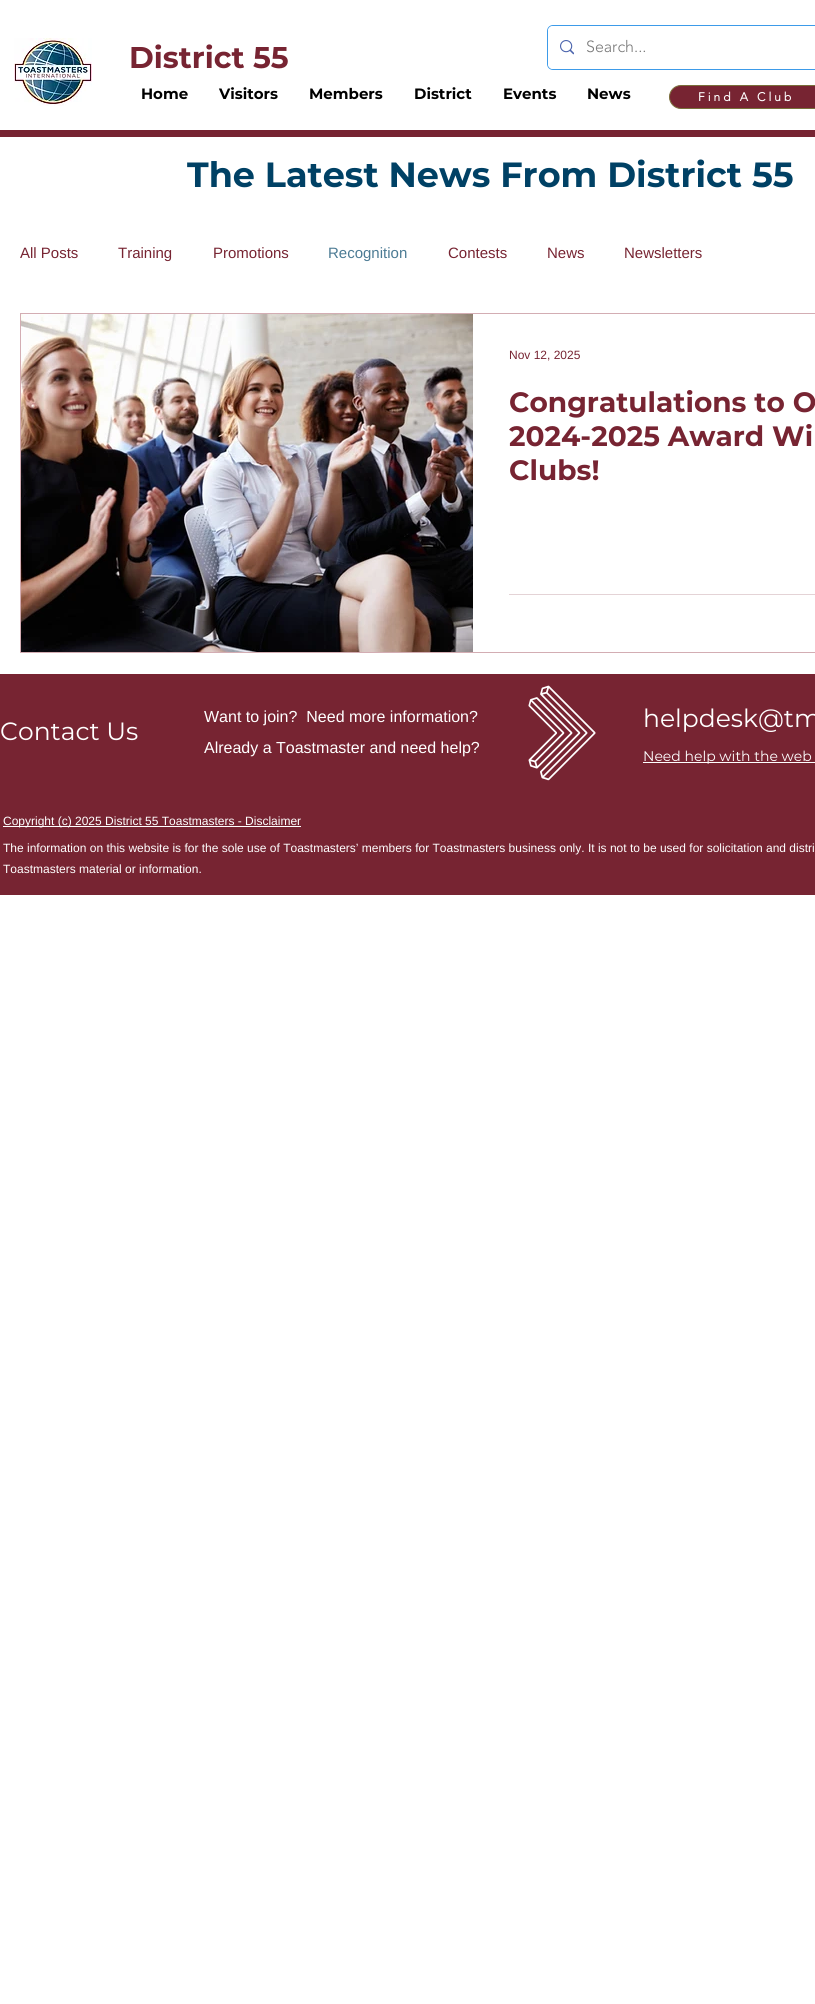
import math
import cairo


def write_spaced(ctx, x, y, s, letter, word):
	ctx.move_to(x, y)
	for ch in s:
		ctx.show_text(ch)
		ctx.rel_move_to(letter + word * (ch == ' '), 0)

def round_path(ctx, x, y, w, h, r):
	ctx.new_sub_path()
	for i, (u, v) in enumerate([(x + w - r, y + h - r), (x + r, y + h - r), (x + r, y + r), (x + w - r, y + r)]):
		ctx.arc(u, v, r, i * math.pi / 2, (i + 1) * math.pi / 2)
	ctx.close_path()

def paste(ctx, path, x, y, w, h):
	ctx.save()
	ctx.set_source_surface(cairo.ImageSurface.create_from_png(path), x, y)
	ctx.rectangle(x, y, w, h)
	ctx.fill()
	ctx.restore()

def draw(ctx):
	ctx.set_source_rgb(1, 1, 1)
	ctx.paint()
	paste(ctx, 'media/1.png', 14, 38, 78, 68)
	ctx.select_font_face('Montserrat', cairo.FONT_SLANT_NORMAL, cairo.FONT_WEIGHT_BOLD)
	ctx.set_font_size(30)
	ctx.set_source_rgb(0.467, 0.141, 0.196)
	ctx.move_to(129, 68)
	ctx.show_text('District 55')
	round_path(ctx, 547.5, 25.5, 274, 44, 5.5)
	ctx.set_source_rgb(0.239, 0.608, 0.914)
	ctx.set_line_width(1)
	ctx.stroke()
	ctx.set_source_rgb(1, 1, 1)
	round_path(ctx, 548, 26, 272, 43, 5)
	ctx.fill()
	paste(ctx, 'media/2.png', 560, 40, 14, 15)
	ctx.select_font_face('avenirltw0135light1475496 Light')
	ctx.set_font_size(16)
	ctx.set_source_rgb(0.471, 0.471, 0.471)
	ctx.move_to(586, 52)
	ctx.show_text('Search...')
	ctx.select_font_face('Montserrat', cairo.FONT_SLANT_NORMAL, cairo.FONT_WEIGHT_BOLD)
	ctx.set_font_size(15)
	ctx.set_source_rgb(0, 0, 0)
	for x, y, s in [
		(141, 99, 'Home'),
		(219, 99, 'Visitors'),
		(309, 99, 'Members'),
		(414, 99, 'District'),
		(503, 99, 'Events'),
		(587, 99, 'News'),
	]:
		ctx.move_to(x, y)
		ctx.show_text(s)
	ctx.set_source_rgb(0.467, 0.141, 0.196)
	round_path(ctx, 669.5, 85.5, 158, 23, 11.5)
	ctx.fill_preserve()
	ctx.set_source_rgb(0.475, 0.435, 0.227)
	ctx.stroke()
	ctx.select_font_face('avenirltw0135light1475496', cairo.FONT_SLANT_NORMAL, cairo.FONT_WEIGHT_BOLD)
	ctx.set_font_size(12)
	ctx.set_source_rgb(1, 1, 1)
	write_spaced(ctx, 698, 101, 'Find A Club', 3, 0)
	ctx.set_source_rgb(0.467, 0.141, 0.196)
	ctx.rectangle(0, 130, 815, 7)
	ctx.fill()
	ctx.select_font_face('Montserrat', cairo.FONT_SLANT_NORMAL, cairo.FONT_WEIGHT_BOLD)
	ctx.set_font_size(35)
	ctx.set_source_rgb(0, 0.255, 0.396)
	ctx.move_to(187, 187)
	ctx.show_text('The Latest News From District 55')
	ctx.select_font_face('Liberation Sans')
	ctx.set_font_size(15)
	ctx.set_source_rgb(0.467, 0.141, 0.196)
	for x, y, s in [
		(20, 258, 'All Posts'),
		(118, 258, 'Training'),
		(213, 258, 'Promotions'),
	]:
		ctx.move_to(x, y)
		ctx.show_text(s)
	ctx.set_source_rgb(0.298, 0.482, 0.58)
	ctx.move_to(328, 258)
	ctx.show_text('Recognition')
	ctx.set_source_rgb(0.467, 0.141, 0.196)
	for x, y, s in [
		(448, 258, 'Contests'),
		(547, 258, 'News'),
		(624, 258, 'Newsletters'),
	]:
		ctx.move_to(x, y)
		ctx.show_text(s)
	ctx.rectangle(20.5, 313.5, 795, 339)
	ctx.set_source_rgb(0.827, 0.678, 0.702)
	ctx.stroke()
	paste(ctx, 'media/3.png', 21, 314, 452, 338)
	ctx.set_font_size(12)
	ctx.set_source_rgb(0.467, 0.141, 0.196)
	ctx.move_to(509, 359)
	ctx.show_text('Nov 12, 2025')
	ctx.select_font_face('Montserrat', cairo.FONT_SLANT_NORMAL, cairo.FONT_WEIGHT_BOLD)
	ctx.set_font_size(28)
	for x, y, s in [
		(509, 412, 'Congratulations to O'),
		(509, 446, '2024-2025 Award Wi'),
		(509, 480, 'Clubs!'),
	]:
		ctx.move_to(x, y)
		ctx.show_text(s)
	ctx.set_source_rgb(0.894, 0.827, 0.839)
	ctx.rectangle(509, 594, 306, 1)
	ctx.fill()
	ctx.set_source_rgb(0.467, 0.141, 0.196)
	ctx.rectangle(0, 674, 815, 221)
	ctx.fill()
	ctx.select_font_face('Montserrat')
	ctx.set_font_size(25)
	ctx.set_source_rgb(1, 1, 1)
	ctx.move_to(0, 740)
	ctx.show_text('Contact Us')
	ctx.select_font_face('Liberation Sans')
	ctx.set_font_size(16)
	ctx.move_to(204, 722)
	ctx.show_text('Want to join?  Need more information?')
	ctx.move_to(204, 753)
	ctx.show_text('Already a Toastmaster and need help?')
	paste(ctx, 'media/4.png', 528, 685, 68, 96)
	ctx.select_font_face('Montserrat')
	ctx.set_font_size(25)
	ctx.move_to(643, 727)
	ctx.show_text('helpdesk@tm')
	ctx.rectangle(643, 762, 172, 1)
	ctx.fill()
	ctx.set_font_size(14)
	ctx.move_to(643, 761)
	ctx.show_text('Need help with the web')
	ctx.rectangle(3, 826, 298, 1)
	ctx.fill()
	ctx.select_font_face('Liberation Sans')
	ctx.set_font_size(12)
	for x, y, s in [
		(3, 825, 'Copyright (c) 2025 District 55 Toastmasters - Disclaimer'),
		(3, 852, 'The information on this website is for the sole use of Toastmasters’ members for Toastmasters business only. It is not to be used for solicitation and distri'),
		(3, 873, 'Toastmasters material or information.'),
	]:
		ctx.move_to(x, y)
		ctx.show_text(s)


surface = cairo.ImageSurface(cairo.FORMAT_RGB24, 815, 2004)
ctx = cairo.Context(surface)
options = cairo.FontOptions()
options.set_hint_metrics(cairo.HINT_METRICS_OFF)
options.set_hint_style(cairo.HINT_STYLE_NONE)
ctx.set_font_options(options)
ctx.set_miter_limit(4)
draw(ctx)
surface.write_to_png('image.png')
